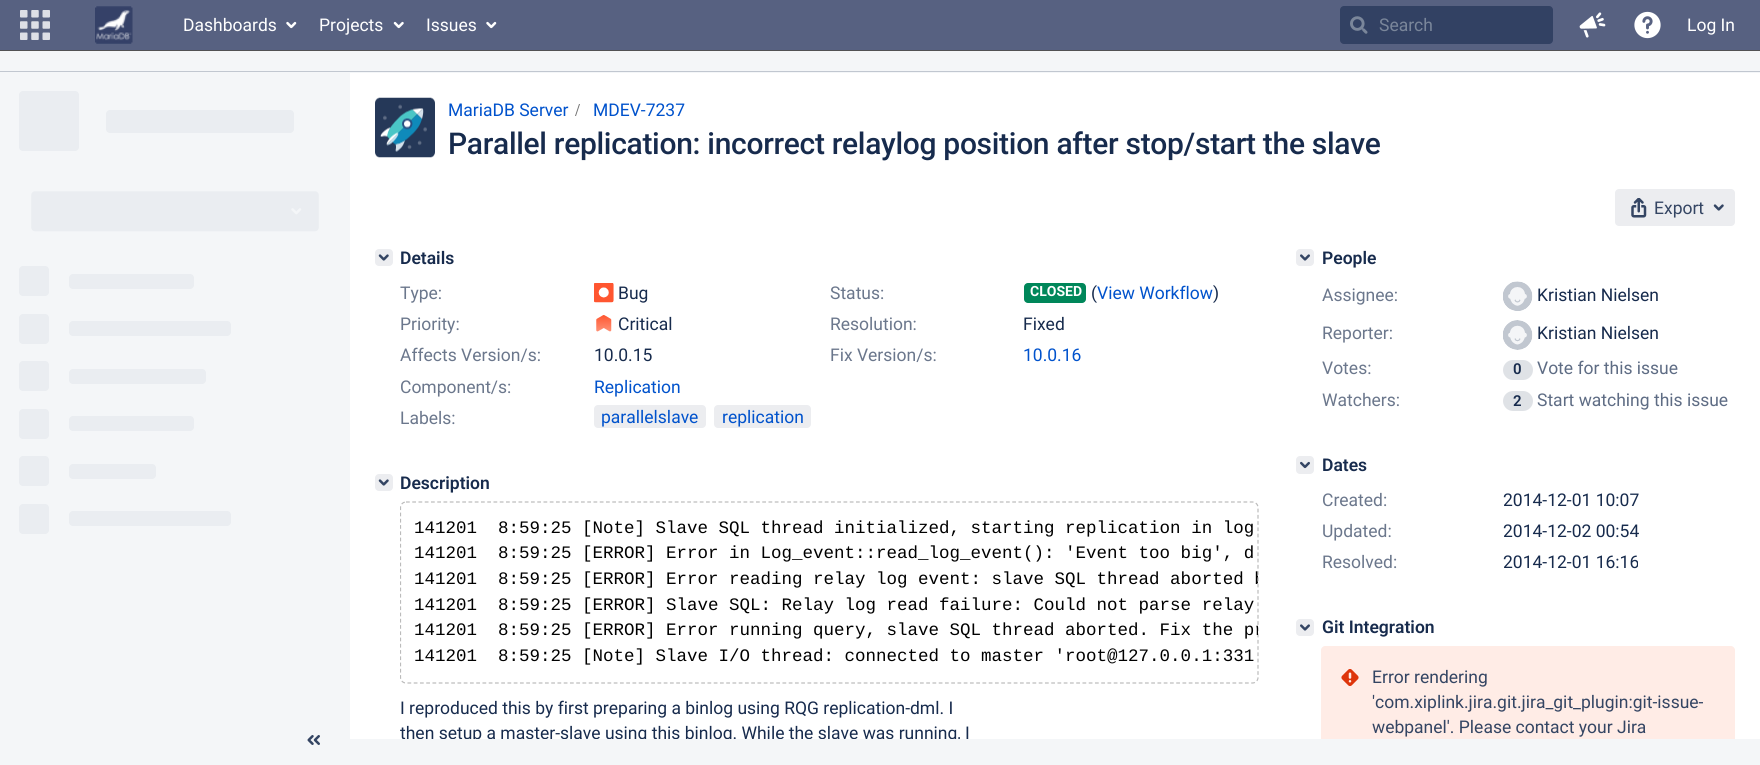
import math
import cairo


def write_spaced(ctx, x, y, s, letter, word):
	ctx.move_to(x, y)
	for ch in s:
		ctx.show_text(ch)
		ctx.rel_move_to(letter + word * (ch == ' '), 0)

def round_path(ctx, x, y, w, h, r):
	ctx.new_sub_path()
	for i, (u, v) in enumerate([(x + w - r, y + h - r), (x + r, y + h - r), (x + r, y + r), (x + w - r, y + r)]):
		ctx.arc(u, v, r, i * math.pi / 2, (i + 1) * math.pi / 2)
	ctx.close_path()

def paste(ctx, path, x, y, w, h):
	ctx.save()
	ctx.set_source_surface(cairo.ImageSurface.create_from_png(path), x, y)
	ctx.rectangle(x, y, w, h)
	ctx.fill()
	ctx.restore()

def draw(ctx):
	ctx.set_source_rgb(0.957, 0.961, 0.969)
	ctx.paint()
	ctx.set_source_rgb(0.341, 0.38, 0.506)
	ctx.rectangle(0, 0, 1760, 50)
	ctx.fill()
	ctx.set_source_rgb(0.322, 0.322, 0.329)
	ctx.rectangle(0, 50, 1760, 1)
	ctx.fill()
	paste(ctx, 'media/1.png', 20, 10, 30, 30)
	paste(ctx, 'media/2.png', 95, 6, 38, 38)
	ctx.select_font_face('Roboto')
	ctx.set_font_size(17.5)
	ctx.set_source_rgb(1, 1, 1)
	ctx.move_to(183, 31)
	ctx.show_text('Dashboards')
	paste(ctx, 'media/3.png', 286, 21, 11, 8)
	ctx.move_to(319, 31)
	ctx.show_text('Projects')
	paste(ctx, 'media/4.png', 393, 21, 11, 8)
	ctx.move_to(426, 31)
	ctx.show_text('Issues')
	paste(ctx, 'media/3.png', 486, 21, 11, 8)
	ctx.set_source_rgb(0.196, 0.255, 0.388)
	round_path(ctx, 1340, 6, 213, 38, 4)
	ctx.fill()
	paste(ctx, 'media/5.png', 1350, 16, 18, 18)
	ctx.set_source_rgb(0.478, 0.525, 0.604)
	ctx.move_to(1379, 31)
	ctx.show_text('Search')
	paste(ctx, 'media/6.png', 1579, 12, 27, 26)
	paste(ctx, 'media/7.png', 1634, 11, 27, 28)
	ctx.set_source_rgb(1, 1, 1)
	ctx.move_to(1687, 31)
	ctx.show_text('Log In')
	ctx.set_source_rgb(0.757, 0.78, 0.816)
	ctx.rectangle(0, 71, 1760, 1)
	ctx.fill()
	paste(ctx, 'media/8.png', 19, 91, 300, 443)
	paste(ctx, 'media/9.png', 307, 735, 13, 10)
	ctx.set_source_rgb(1, 1, 1)
	ctx.rectangle(350, 73, 1410, 666)
	ctx.fill()
	paste(ctx, 'media/10.png', 375, 97, 60, 61)
	ctx.set_source_rgb(0, 0.322, 0.8)
	ctx.move_to(448, 116)
	ctx.show_text('MariaDB Server')
	ctx.set_source_rgb(0.439, 0.439, 0.439)
	ctx.new_path()
	ctx.move_to(576, 116)
	ctx.line_to(580, 104)
	ctx.line_to(579, 104)
	ctx.line_to(575, 116)
	ctx.close_path()
	ctx.fill()
	ctx.set_source_rgb(0, 0.322, 0.8)
	ctx.move_to(593, 116)
	ctx.show_text('MDEV-7237')
	ctx.select_font_face('Roboto Medium')
	ctx.set_font_size(30)
	ctx.set_source_rgb(0.09, 0.169, 0.302)
	write_spaced(ctx, 448, 154, 'Parallel replication: incorrect relaylog position after stop/start the slave', -0.3, 0)
	ctx.set_source_rgb(0.922, 0.929, 0.941)
	round_path(ctx, 1615, 189, 120, 37, 4)
	ctx.fill()
	paste(ctx, 'media/11.png', 1631, 198, 16, 20)
	ctx.select_font_face('Roboto')
	ctx.set_font_size(17.5)
	ctx.set_source_rgb(0.204, 0.271, 0.388)
	ctx.move_to(1654, 214)
	ctx.show_text('Export')
	paste(ctx, 'media/12.png', 1713, 204, 11, 7)
	ctx.set_source_rgb(0.922, 0.929, 0.941)
	round_path(ctx, 375, 249, 18, 17, 4)
	ctx.fill()
	paste(ctx, 'media/13.png', 378, 254, 11, 7)
	ctx.select_font_face('Roboto SemiBold')
	ctx.set_source_rgb(0.09, 0.169, 0.302)
	ctx.move_to(400, 264)
	ctx.show_text('Details')
	ctx.select_font_face('Roboto')
	ctx.set_source_rgb(0.42, 0.467, 0.549)
	ctx.move_to(400, 299)
	ctx.show_text('Type:')
	paste(ctx, 'media/14.png', 594, 283, 20, 20)
	ctx.set_source_rgb(0.09, 0.169, 0.302)
	ctx.move_to(618, 299)
	ctx.show_text('Bug')
	ctx.set_source_rgb(0.42, 0.467, 0.549)
	ctx.move_to(830, 299)
	ctx.show_text('Status:')
	ctx.set_source_rgb(0, 0.529, 0.353)
	round_path(ctx, 1024, 283, 62, 20, 4)
	ctx.fill()
	ctx.select_font_face('Roboto', cairo.FONT_SLANT_NORMAL, cairo.FONT_WEIGHT_BOLD)
	ctx.set_font_size(14)
	ctx.set_source_rgb(1, 1, 1)
	ctx.move_to(1030, 296)
	ctx.show_text('CLOSED')
	ctx.select_font_face('Roboto')
	ctx.set_font_size(17.5)
	ctx.set_source_rgb(0.09, 0.169, 0.302)
	ctx.move_to(1091, 299)
	ctx.show_text('(')
	ctx.set_source_rgb(0, 0.322, 0.8)
	ctx.move_to(1097, 299)
	ctx.show_text('View Workflow')
	ctx.set_source_rgb(0.09, 0.169, 0.302)
	ctx.move_to(1213, 299)
	ctx.show_text(')')
	ctx.set_source_rgb(0.42, 0.467, 0.549)
	ctx.move_to(400, 330)
	ctx.show_text('Priority:')
	paste(ctx, 'media/15.png', 596, 315, 16, 17)
	ctx.set_source_rgb(0.09, 0.169, 0.302)
	ctx.move_to(618, 330)
	ctx.show_text('Critical')
	ctx.set_source_rgb(0.42, 0.467, 0.549)
	ctx.move_to(830, 330)
	ctx.show_text('Resolution:')
	ctx.set_source_rgb(0.09, 0.169, 0.302)
	ctx.move_to(1023, 330)
	ctx.show_text('Fixed')
	ctx.set_source_rgb(0.42, 0.467, 0.549)
	ctx.move_to(400, 361)
	ctx.show_text('Affects Version/s:')
	ctx.set_source_rgb(0.09, 0.169, 0.302)
	ctx.move_to(594, 361)
	ctx.show_text('10.0.15')
	ctx.set_source_rgb(0.42, 0.467, 0.549)
	ctx.move_to(830, 361)
	ctx.show_text('Fix Version/s:')
	ctx.set_source_rgb(0, 0.322, 0.8)
	ctx.move_to(1023, 361)
	ctx.show_text('10.0.16')
	ctx.set_source_rgb(0.42, 0.467, 0.549)
	ctx.move_to(400, 393)
	ctx.show_text('Component/s:')
	ctx.set_source_rgb(0, 0.322, 0.8)
	ctx.move_to(594, 393)
	ctx.show_text('Replication')
	ctx.set_source_rgb(0.42, 0.467, 0.549)
	ctx.move_to(400, 424)
	ctx.show_text('Labels:')
	ctx.set_source_rgb(0.922, 0.929, 0.941)
	round_path(ctx, 594, 405, 112, 23, 4)
	ctx.fill()
	ctx.set_source_rgb(0, 0.322, 0.8)
	ctx.move_to(601, 423)
	ctx.show_text('parallelslave')
	ctx.set_source_rgb(0.922, 0.929, 0.941)
	round_path(ctx, 714, 405, 97, 23, 4)
	ctx.fill()
	ctx.set_source_rgb(0, 0.322, 0.8)
	ctx.move_to(722, 423)
	ctx.show_text('replication')
	ctx.set_source_rgb(0.922, 0.929, 0.941)
	round_path(ctx, 375, 474, 18, 17, 4)
	ctx.fill()
	paste(ctx, 'media/13.png', 378, 479, 11, 7)
	ctx.select_font_face('Roboto SemiBold')
	ctx.set_source_rgb(0.09, 0.169, 0.302)
	ctx.move_to(400, 489)
	ctx.show_text('Description')
	ctx.save()
	ctx.rectangle(400, 501, 859, 238)
	ctx.clip()
	ctx.new_path()
	ctx.move_to(406, 502)
	ctx.line_to(1252.5, 502)
	ctx.curve_to(1255.5, 502, 1258, 504.5, 1258, 507.5)
	ctx.line_to(1258, 677.5)
	ctx.curve_to(1258, 680.5, 1255.5, 683, 1252.5, 683)
	ctx.line_to(406, 683)
	ctx.curve_to(403, 683, 400.5, 680.5, 400.5, 677.5)
	ctx.line_to(400.5, 507.5)
	ctx.curve_to(400.5, 504.5, 403, 502, 406, 502)
	ctx.close_path()
	ctx.set_source_rgb(0.733, 0.733, 0.733)
	ctx.set_line_width(1.2)
	ctx.set_dash([3.75, 2.5])
	ctx.stroke()
	ctx.restore()
	ctx.select_font_face('Liberation Mono')
	ctx.set_source_rgb(0, 0, 0)
	ctx.move_to(414, 533)
	ctx.show_text('141201  8:59:25 [Note] Slave SQL thread initialized, starting replication in log')
	ctx.move_to(414, 558)
	ctx.show_text('141201  8:59:25 [ERROR] Error in Log_event::read_log_event(): \'Event too big\', d')
	ctx.save()
	round_path(ctx, 401, 503, 857, 180, 5)
	ctx.clip()
	ctx.move_to(414, 584)
	ctx.show_text('141201  8:59:25 [ERROR] Error reading relay log event: slave SQL thread aborted b')
	ctx.restore()
	ctx.move_to(414, 610)
	ctx.show_text('141201  8:59:25 [ERROR] Slave SQL: Relay log read failure: Could not parse relay')
	ctx.save()
	round_path(ctx, 401, 503, 857, 180, 5)
	ctx.clip()
	ctx.move_to(414, 635)
	ctx.show_text('141201  8:59:25 [ERROR] Error running query, slave SQL thread aborted. Fix the pr')
	ctx.restore()
	ctx.move_to(414, 661)
	ctx.show_text('141201  8:59:25 [Note] Slave I/O thread: connected to master \'root@127.0.0.1:331')
	ctx.select_font_face('Roboto')
	ctx.set_source_rgb(0.09, 0.169, 0.302)
	ctx.move_to(400, 714)
	ctx.show_text('I reproduced this by first preparing a binlog using RQG replication-dml. I')
	ctx.save()
	ctx.rectangle(400, 501, 859, 238)
	ctx.clip()
	ctx.move_to(400, 739)
	ctx.show_text('then setup a master-slave using this binlog. While the slave was running, I')
	ctx.restore()
	ctx.set_source_rgb(0.922, 0.929, 0.941)
	round_path(ctx, 1296, 249, 18, 17, 4)
	ctx.fill()
	paste(ctx, 'media/16.png', 1300, 254, 10, 7)
	ctx.select_font_face('Roboto SemiBold')
	ctx.set_source_rgb(0.09, 0.169, 0.302)
	ctx.move_to(1322, 264)
	ctx.show_text('People')
	ctx.select_font_face('Roboto')
	ctx.set_source_rgb(0.42, 0.467, 0.549)
	ctx.move_to(1322, 301)
	ctx.show_text('Assignee:')
	paste(ctx, 'media/17.png', 1503, 281, 30, 30)
	ctx.set_source_rgb(0.09, 0.169, 0.302)
	ctx.move_to(1537, 301)
	ctx.show_text('Kristian Nielsen')
	ctx.set_source_rgb(0.42, 0.467, 0.549)
	ctx.move_to(1322, 339)
	ctx.show_text('Reporter:')
	paste(ctx, 'media/18.png', 1503, 320, 30, 30)
	ctx.set_source_rgb(0.09, 0.169, 0.302)
	ctx.move_to(1537, 339)
	ctx.show_text('Kristian Nielsen')
	ctx.set_source_rgb(0.42, 0.467, 0.549)
	ctx.move_to(1322, 374)
	ctx.show_text('Votes:')
	ctx.set_source_rgb(0.875, 0.886, 0.902)
	round_path(ctx, 1503, 360, 30, 20, 10)
	ctx.fill()
	ctx.select_font_face('Roboto SemiBold')
	ctx.set_font_size(15)
	ctx.set_source_rgb(0.09, 0.169, 0.302)
	ctx.move_to(1513, 374)
	ctx.show_text('0')
	ctx.select_font_face('Roboto')
	ctx.set_font_size(17.5)
	ctx.set_source_rgb(0.369, 0.424, 0.518)
	ctx.move_to(1537, 374)
	ctx.show_text('Vote for this issue')
	ctx.set_source_rgb(0.42, 0.467, 0.549)
	ctx.move_to(1322, 406)
	ctx.show_text('Watchers:')
	ctx.set_source_rgb(0.875, 0.886, 0.902)
	round_path(ctx, 1503, 391, 30, 20, 10)
	ctx.fill()
	ctx.select_font_face('Roboto SemiBold')
	ctx.set_font_size(15)
	ctx.set_source_rgb(0.09, 0.169, 0.302)
	ctx.move_to(1513, 406)
	ctx.show_text('2')
	ctx.select_font_face('Roboto')
	ctx.set_font_size(17.5)
	ctx.set_source_rgb(0.369, 0.424, 0.518)
	ctx.move_to(1537, 406)
	ctx.show_text('Start watching this issue')
	ctx.set_source_rgb(0.922, 0.929, 0.941)
	round_path(ctx, 1296, 456, 18, 18, 4)
	ctx.fill()
	paste(ctx, 'media/19.png', 1300, 461, 10, 8)
	ctx.select_font_face('Roboto SemiBold')
	ctx.set_source_rgb(0.09, 0.169, 0.302)
	ctx.move_to(1322, 471)
	ctx.show_text('Dates')
	ctx.select_font_face('Roboto')
	ctx.set_source_rgb(0.42, 0.467, 0.549)
	ctx.move_to(1322, 506)
	ctx.show_text('Created:')
	ctx.set_source_rgb(0.09, 0.169, 0.302)
	ctx.move_to(1503, 506)
	ctx.show_text('2014-12-01 10:07')
	ctx.set_source_rgb(0.42, 0.467, 0.549)
	ctx.move_to(1322, 537)
	ctx.show_text('Updated:')
	ctx.set_source_rgb(0.09, 0.169, 0.302)
	ctx.move_to(1503, 537)
	ctx.show_text('2014-12-02 00:54')
	ctx.set_source_rgb(0.42, 0.467, 0.549)
	ctx.move_to(1322, 568)
	ctx.show_text('Resolved:')
	ctx.set_source_rgb(0.09, 0.169, 0.302)
	ctx.move_to(1503, 568)
	ctx.show_text('2014-12-01 16:16')
	ctx.set_source_rgb(0.922, 0.929, 0.941)
	round_path(ctx, 1296, 619, 18, 17, 4)
	ctx.fill()
	paste(ctx, 'media/16.png', 1300, 624, 10, 7)
	ctx.select_font_face('Roboto SemiBold')
	ctx.set_source_rgb(0.09, 0.169, 0.302)
	ctx.move_to(1322, 633)
	ctx.show_text('Git Integration')
	ctx.set_source_rgb(1, 0.922, 0.902)
	ctx.new_path()
	ctx.move_to(1325, 646)
	ctx.line_to(1731, 646)
	ctx.curve_to(1733, 646, 1735, 648, 1735, 650)
	ctx.line_to(1735, 739)
	ctx.line_to(1321, 739)
	ctx.line_to(1321, 650)
	ctx.curve_to(1321, 648, 1323, 646, 1325, 646)
	ctx.close_path()
	ctx.fill()
	paste(ctx, 'media/20.png', 1341, 669, 18, 17)
	ctx.select_font_face('Roboto')
	ctx.set_source_rgb(0.204, 0.271, 0.388)
	for x, y, s in [
		(1372, 683, 'Error rendering'),
		(1372, 708, '\'com.xiplink.jira.git.jira_git_plugin:git-issue-'),
		(1372, 733, 'webpanel\'. Please contact your Jira'),
	]:
		ctx.move_to(x, y)
		ctx.show_text(s)


surface = cairo.ImageSurface(cairo.FORMAT_RGB24, 1760, 765)
ctx = cairo.Context(surface)
options = cairo.FontOptions()
options.set_hint_metrics(cairo.HINT_METRICS_OFF)
options.set_hint_style(cairo.HINT_STYLE_NONE)
ctx.set_font_options(options)
ctx.set_miter_limit(4)
draw(ctx)
surface.write_to_png('image.png')
